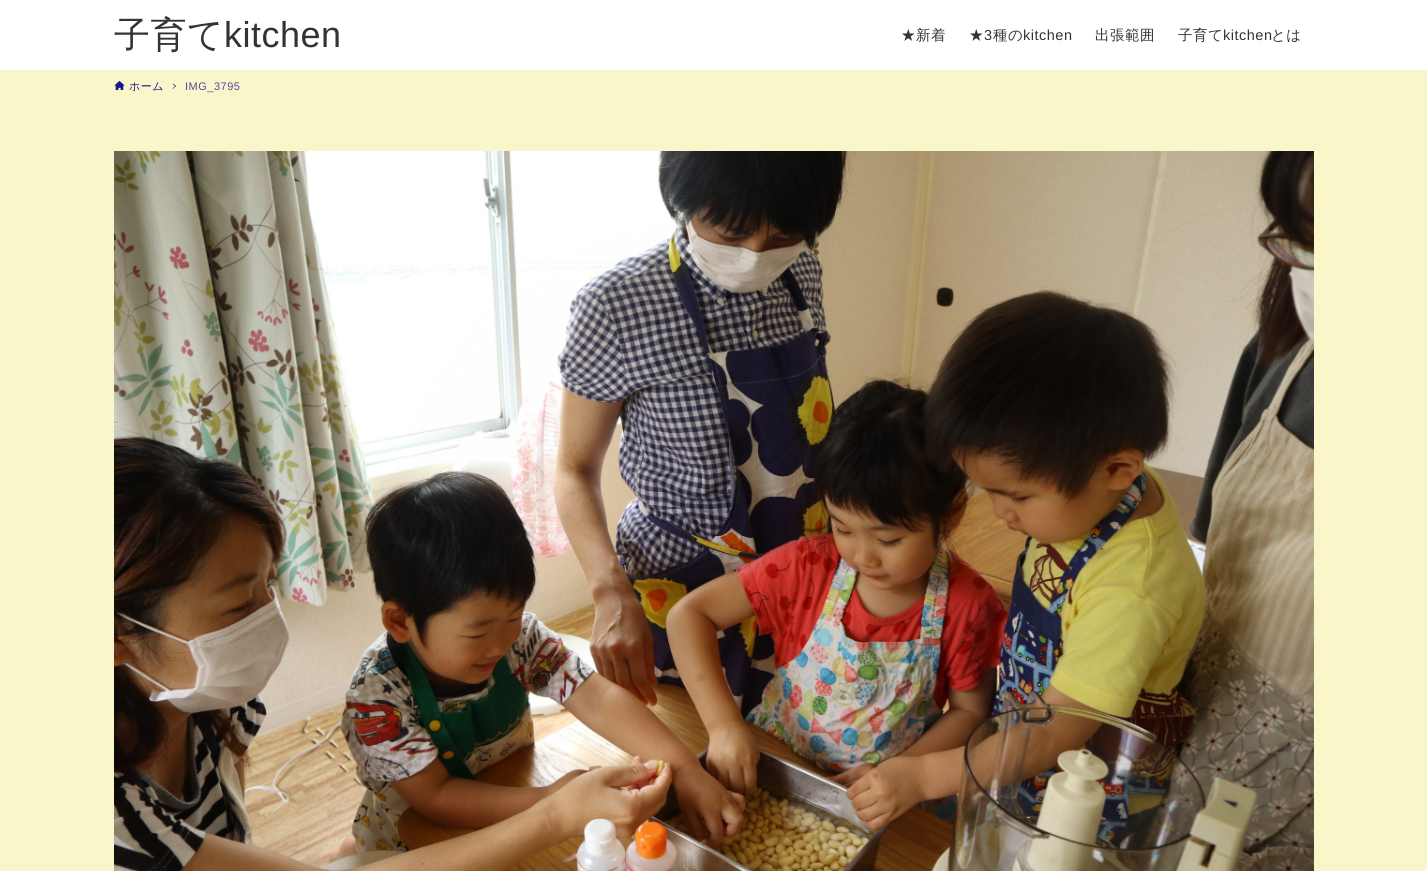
import math
import cairo


def write_spaced(ctx, x, y, s, letter, word):
	ctx.move_to(x, y)
	for ch in s:
		ctx.show_text(ch)
		ctx.rel_move_to(letter + word * (ch == ' '), 0)

def paste(ctx, path, x, y, w, h):
	ctx.save()
	ctx.set_source_surface(cairo.ImageSurface.create_from_png(path), x, y)
	ctx.rectangle(x, y, w, h)
	ctx.fill()
	ctx.restore()

def draw(ctx):
	ctx.set_source_rgb(0.976, 0.961, 0.792)
	ctx.paint()
	ctx.set_source_rgb(1, 1, 1)
	ctx.rectangle(0, 0, 1427, 70)
	ctx.fill()
	ctx.select_font_face('WenQuanYi Zen Hei Medium')
	ctx.set_font_size(36)
	ctx.set_source_rgb(0.2, 0.2, 0.2)
	write_spaced(ctx, 114, 47, '子育て', 0.5, 0)
	ctx.select_font_face('Liberation Sans')
	write_spaced(ctx, 224, 47, 'kitchen', 0.5, 0)
	ctx.select_font_face('WenQuanYi Zen Hei Medium')
	ctx.set_font_size(14.5)
	write_spaced(ctx, 901, 40, '★新着', 0.5, 0)
	write_spaced(ctx, 969, 40, '★', 0.5, 0)
	ctx.select_font_face('Liberation Sans')
	write_spaced(ctx, 984, 40, '3', 0.5, 0)
	ctx.select_font_face('WenQuanYi Zen Hei Medium')
	write_spaced(ctx, 993, 40, '種の', 0.5, 0)
	ctx.select_font_face('Liberation Sans')
	write_spaced(ctx, 1023, 40, 'kitchen', 0.5, 0)
	ctx.select_font_face('WenQuanYi Zen Hei Medium')
	write_spaced(ctx, 1095, 40, '出張範囲', 0.5, 0)
	write_spaced(ctx, 1178, 40, '子育て', 0.5, 0)
	ctx.select_font_face('Liberation Sans')
	write_spaced(ctx, 1223, 40, 'kitchen', 0.5, 0)
	ctx.select_font_face('WenQuanYi Zen Hei Medium')
	write_spaced(ctx, 1271, 40, 'とは', 0.5, 0)
	paste(ctx, 'media/1.png', 114, 81, 11, 9)
	ctx.set_font_size(11)
	ctx.set_source_rgb(0.102, 0.086, 0.557)
	write_spaced(ctx, 129, 90, 'ホーム', 0.5, 0)
	ctx.set_source_rgb(0.322, 0.306, 0.616)
	ctx.new_path()
	ctx.move_to(173, 83.5)
	ctx.line_to(176, 86)
	ctx.line_to(175.5, 87)
	ctx.line_to(172.5, 84)
	ctx.close_path()
	ctx.fill()
	ctx.new_path()
	ctx.move_to(175.5, 85.5)
	ctx.line_to(176, 86)
	ctx.line_to(173, 89)
	ctx.line_to(172.5, 88.5)
	ctx.close_path()
	ctx.fill()
	ctx.select_font_face('Liberation Sans')
	write_spaced(ctx, 185, 90, 'IMG_3795', 0.5, 0)
	paste(ctx, 'media/2.png', 114, 151, 1200, 720)


surface = cairo.ImageSurface(cairo.FORMAT_RGB24, 1427, 871)
ctx = cairo.Context(surface)
options = cairo.FontOptions()
options.set_hint_metrics(cairo.HINT_METRICS_OFF)
options.set_hint_style(cairo.HINT_STYLE_NONE)
ctx.set_font_options(options)
ctx.set_miter_limit(4)
draw(ctx)
surface.write_to_png('image.png')
